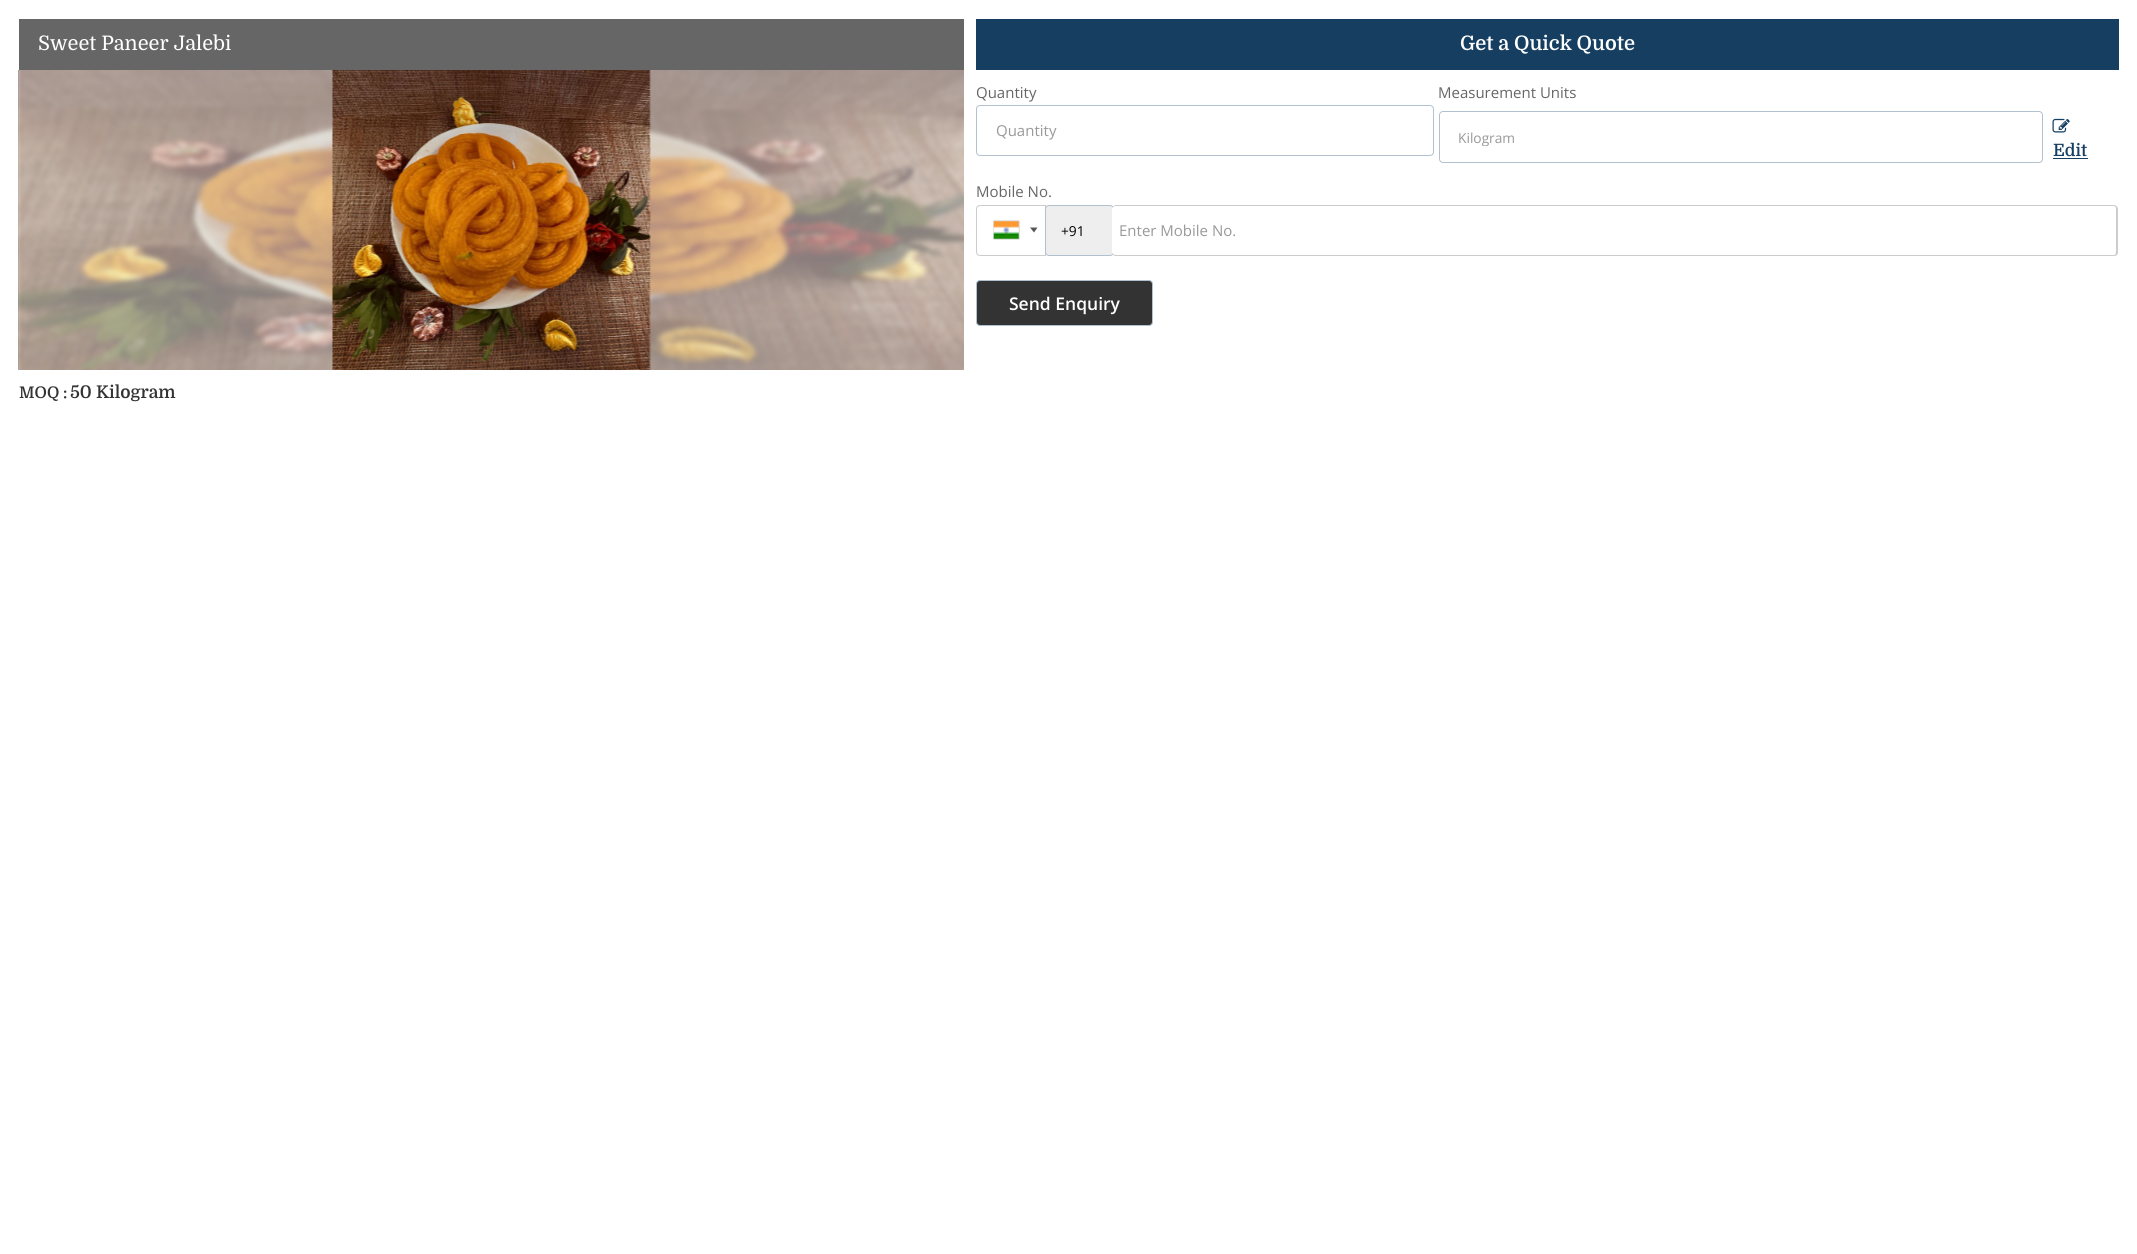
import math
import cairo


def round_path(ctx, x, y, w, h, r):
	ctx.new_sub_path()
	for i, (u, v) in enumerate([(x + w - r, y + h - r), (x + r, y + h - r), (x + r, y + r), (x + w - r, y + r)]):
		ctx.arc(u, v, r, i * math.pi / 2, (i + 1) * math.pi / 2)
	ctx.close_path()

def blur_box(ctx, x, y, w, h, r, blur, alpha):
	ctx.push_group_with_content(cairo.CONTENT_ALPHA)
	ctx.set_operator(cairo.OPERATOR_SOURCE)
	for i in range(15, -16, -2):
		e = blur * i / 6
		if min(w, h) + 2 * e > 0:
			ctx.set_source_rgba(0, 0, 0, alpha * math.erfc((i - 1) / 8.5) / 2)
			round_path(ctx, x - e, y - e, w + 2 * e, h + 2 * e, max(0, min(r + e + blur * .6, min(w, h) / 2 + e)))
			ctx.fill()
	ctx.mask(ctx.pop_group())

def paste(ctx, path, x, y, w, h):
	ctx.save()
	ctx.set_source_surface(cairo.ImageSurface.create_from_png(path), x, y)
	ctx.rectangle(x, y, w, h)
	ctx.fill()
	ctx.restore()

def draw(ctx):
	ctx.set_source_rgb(1, 1, 1)
	ctx.paint()
	ctx.set_source_rgb(0.969, 0.969, 0.969)
	ctx.rectangle(19, 70, 6, 300)
	ctx.fill()
	ctx.set_source_rgb(0.4, 0.4, 0.4)
	ctx.rectangle(19, 19, 945, 51)
	ctx.fill()
	ctx.select_font_face('Domine')
	ctx.set_font_size(20)
	ctx.set_source_rgb(1, 1, 1)
	ctx.move_to(38, 50)
	ctx.show_text('Sweet Paneer Jalebi')
	paste(ctx, 'media/1.png', 18, 70, 946, 300)
	ctx.set_source_rgb(0.086, 0.243, 0.38)
	ctx.rectangle(976, 19, 1143, 51)
	ctx.fill()
	round_path(ctx, 976.5, 105.5, 457, 50, 3.5)
	ctx.set_source_rgb(0.698, 0.757, 0.812)
	ctx.set_line_width(1)
	ctx.stroke()
	ctx.set_source_rgb(0.2, 0.2, 0.2)
	round_path(ctx, 976.5, 280.5, 176, 45, 3.5)
	ctx.fill_preserve()
	ctx.set_source_rgb(0.698, 0.757, 0.812)
	ctx.stroke()
	ctx.save()
	ctx.rectangle(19, 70, 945, 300)
	ctx.clip()
	ctx.set_source_rgb(0.969, 0.969, 0.969)
	blur_box(ctx, 19, 58, 957, 325, 0, 2.5, 0.5)
	ctx.restore()
	paste(ctx, 'media/2.png', 332, 70, 319, 300)
	ctx.select_font_face('Domine SemiBold')
	ctx.set_font_size(16)
	ctx.set_source_rgb(0.2, 0.2, 0.2)
	ctx.move_to(19, 398)
	ctx.show_text('MOQ :')
	ctx.set_font_size(17.5)
	ctx.move_to(70, 398)
	ctx.show_text('50 Kilogram')
	ctx.set_font_size(20)
	ctx.set_source_rgb(1, 1, 1)
	ctx.move_to(1460, 50)
	ctx.show_text('Get a Quick Quote')
	ctx.select_font_face('Open Sans')
	ctx.set_font_size(15)
	ctx.set_source_rgb(0.4, 0.4, 0.4)
	ctx.move_to(976, 98)
	ctx.show_text('Quantity')
	ctx.set_source_rgb(0.6, 0.6, 0.6)
	ctx.move_to(996, 136)
	ctx.show_text('Quantity')
	ctx.set_source_rgb(0.4, 0.4, 0.4)
	ctx.move_to(1438, 98)
	ctx.show_text('Measurement Units')
	round_path(ctx, 1439.5, 111.5, 603, 51, 3.5)
	ctx.set_source_rgb(0.698, 0.757, 0.812)
	ctx.stroke()
	ctx.save()
	ctx.rectangle(1459, 128, 564, 18)
	ctx.clip()
	ctx.set_font_size(13.75)
	ctx.set_source_rgb(0.6, 0.6, 0.6)
	ctx.move_to(1458, 143)
	ctx.show_text('Kilogram')
	ctx.restore()
	paste(ctx, 'media/3.png', 2052, 118, 18, 15)
	ctx.select_font_face('Domine SemiBold')
	ctx.set_font_size(17)
	ctx.set_source_rgb(0.086, 0.243, 0.38)
	ctx.move_to(2053, 156)
	ctx.show_text('Edit')
	ctx.rectangle(2053, 158, 35, 1)
	ctx.fill()
	ctx.select_font_face('Open Sans')
	ctx.set_font_size(15)
	ctx.set_source_rgb(0.4, 0.4, 0.4)
	ctx.move_to(976, 197)
	ctx.show_text('Mobile No.')
	ctx.new_path()
	ctx.move_to(980, 205.5)
	ctx.line_to(1045.5, 205.5)
	ctx.line_to(1045.5, 255.5)
	ctx.line_to(980, 255.5)
	ctx.curve_to(978, 255.5, 976.5, 254, 976.5, 252)
	ctx.line_to(976.5, 209)
	ctx.curve_to(976.5, 207, 978, 205.5, 980, 205.5)
	ctx.close_path()
	ctx.set_source_rgb(0.8, 0.8, 0.8)
	ctx.stroke()
	ctx.set_source_rgb(0.533, 0.533, 0.533)
	blur_box(ctx, 994, 221, 25, 18, 0, 0.5, 1)
	ctx.set_source_rgb(0.859, 0.859, 0.859)
	ctx.rectangle(994, 221, 25, 18)
	ctx.fill()
	paste(ctx, 'media/4.png', 993, 221, 26, 18)
	ctx.set_source_rgb(0.333, 0.333, 0.333)
	ctx.new_path()
	ctx.move_to(1030, 227.5)
	ctx.line_to(1037.5, 227.5)
	ctx.line_to(1034, 232.5)
	ctx.close_path()
	ctx.fill()
	ctx.set_source_rgb(0.933, 0.933, 0.933)
	round_path(ctx, 1045.5, 205.5, 68, 50, 3.5)
	ctx.fill_preserve()
	ctx.set_source_rgb(0.698, 0.757, 0.812)
	ctx.stroke()
	ctx.set_font_size(13.75)
	ctx.set_source_rgb(0, 0, 0)
	ctx.move_to(1061, 236)
	ctx.show_text('+91')
	ctx.set_source_rgb(1, 1, 1)
	ctx.new_path()
	ctx.move_to(1116, 206)
	ctx.line_to(2114, 206)
	ctx.curve_to(2115, 206, 2116, 207, 2116, 209)
	ctx.line_to(2116, 252)
	ctx.curve_to(2116, 254, 2115, 255, 2114, 255)
	ctx.line_to(1116, 255)
	ctx.curve_to(1114, 255, 1112, 254, 1112, 252)
	ctx.line_to(1112, 209)
	ctx.curve_to(1112, 207, 1114, 206, 1116, 206)
	ctx.close_path()
	ctx.fill()
	ctx.set_source_rgb(0.8, 0.8, 0.8)
	ctx.set_fill_rule(cairo.FILL_RULE_EVEN_ODD)
	ctx.new_path()
	ctx.move_to(1116, 205)
	ctx.line_to(2114, 205)
	ctx.curve_to(2116, 205, 2118, 207, 2118, 209)
	ctx.line_to(2118, 252)
	ctx.curve_to(2118, 255, 2116, 256, 2114, 256)
	ctx.line_to(1116, 256)
	ctx.curve_to(1114, 256, 1112, 255, 1112, 252)
	ctx.line_to(1112, 209)
	ctx.curve_to(1112, 207, 1114, 205, 1116, 205)
	ctx.close_path()
	ctx.move_to(1116, 206)
	ctx.line_to(2114, 206)
	ctx.curve_to(2115, 206, 2116, 207, 2116, 209)
	ctx.line_to(2116, 252)
	ctx.curve_to(2116, 254, 2115, 255, 2114, 255)
	ctx.line_to(1116, 255)
	ctx.curve_to(1114, 255, 1112, 254, 1112, 252)
	ctx.line_to(1112, 209)
	ctx.curve_to(1112, 207, 1114, 206, 1116, 206)
	ctx.close_path()
	ctx.fill()
	ctx.set_font_size(15)
	ctx.set_source_rgb(0.6, 0.6, 0.6)
	ctx.move_to(1119, 236)
	ctx.show_text('Enter Mobile No.')
	ctx.select_font_face('Open Sans SemiBold')
	ctx.set_font_size(17.5)
	ctx.set_source_rgb(1, 1, 1)
	ctx.move_to(1009, 310)
	ctx.show_text('Send Enquiry')


surface = cairo.ImageSurface(cairo.FORMAT_RGB24, 2137, 1254)
ctx = cairo.Context(surface)
options = cairo.FontOptions()
options.set_hint_metrics(cairo.HINT_METRICS_OFF)
options.set_hint_style(cairo.HINT_STYLE_NONE)
ctx.set_font_options(options)
ctx.set_miter_limit(4)
draw(ctx)
surface.write_to_png('image.png')
